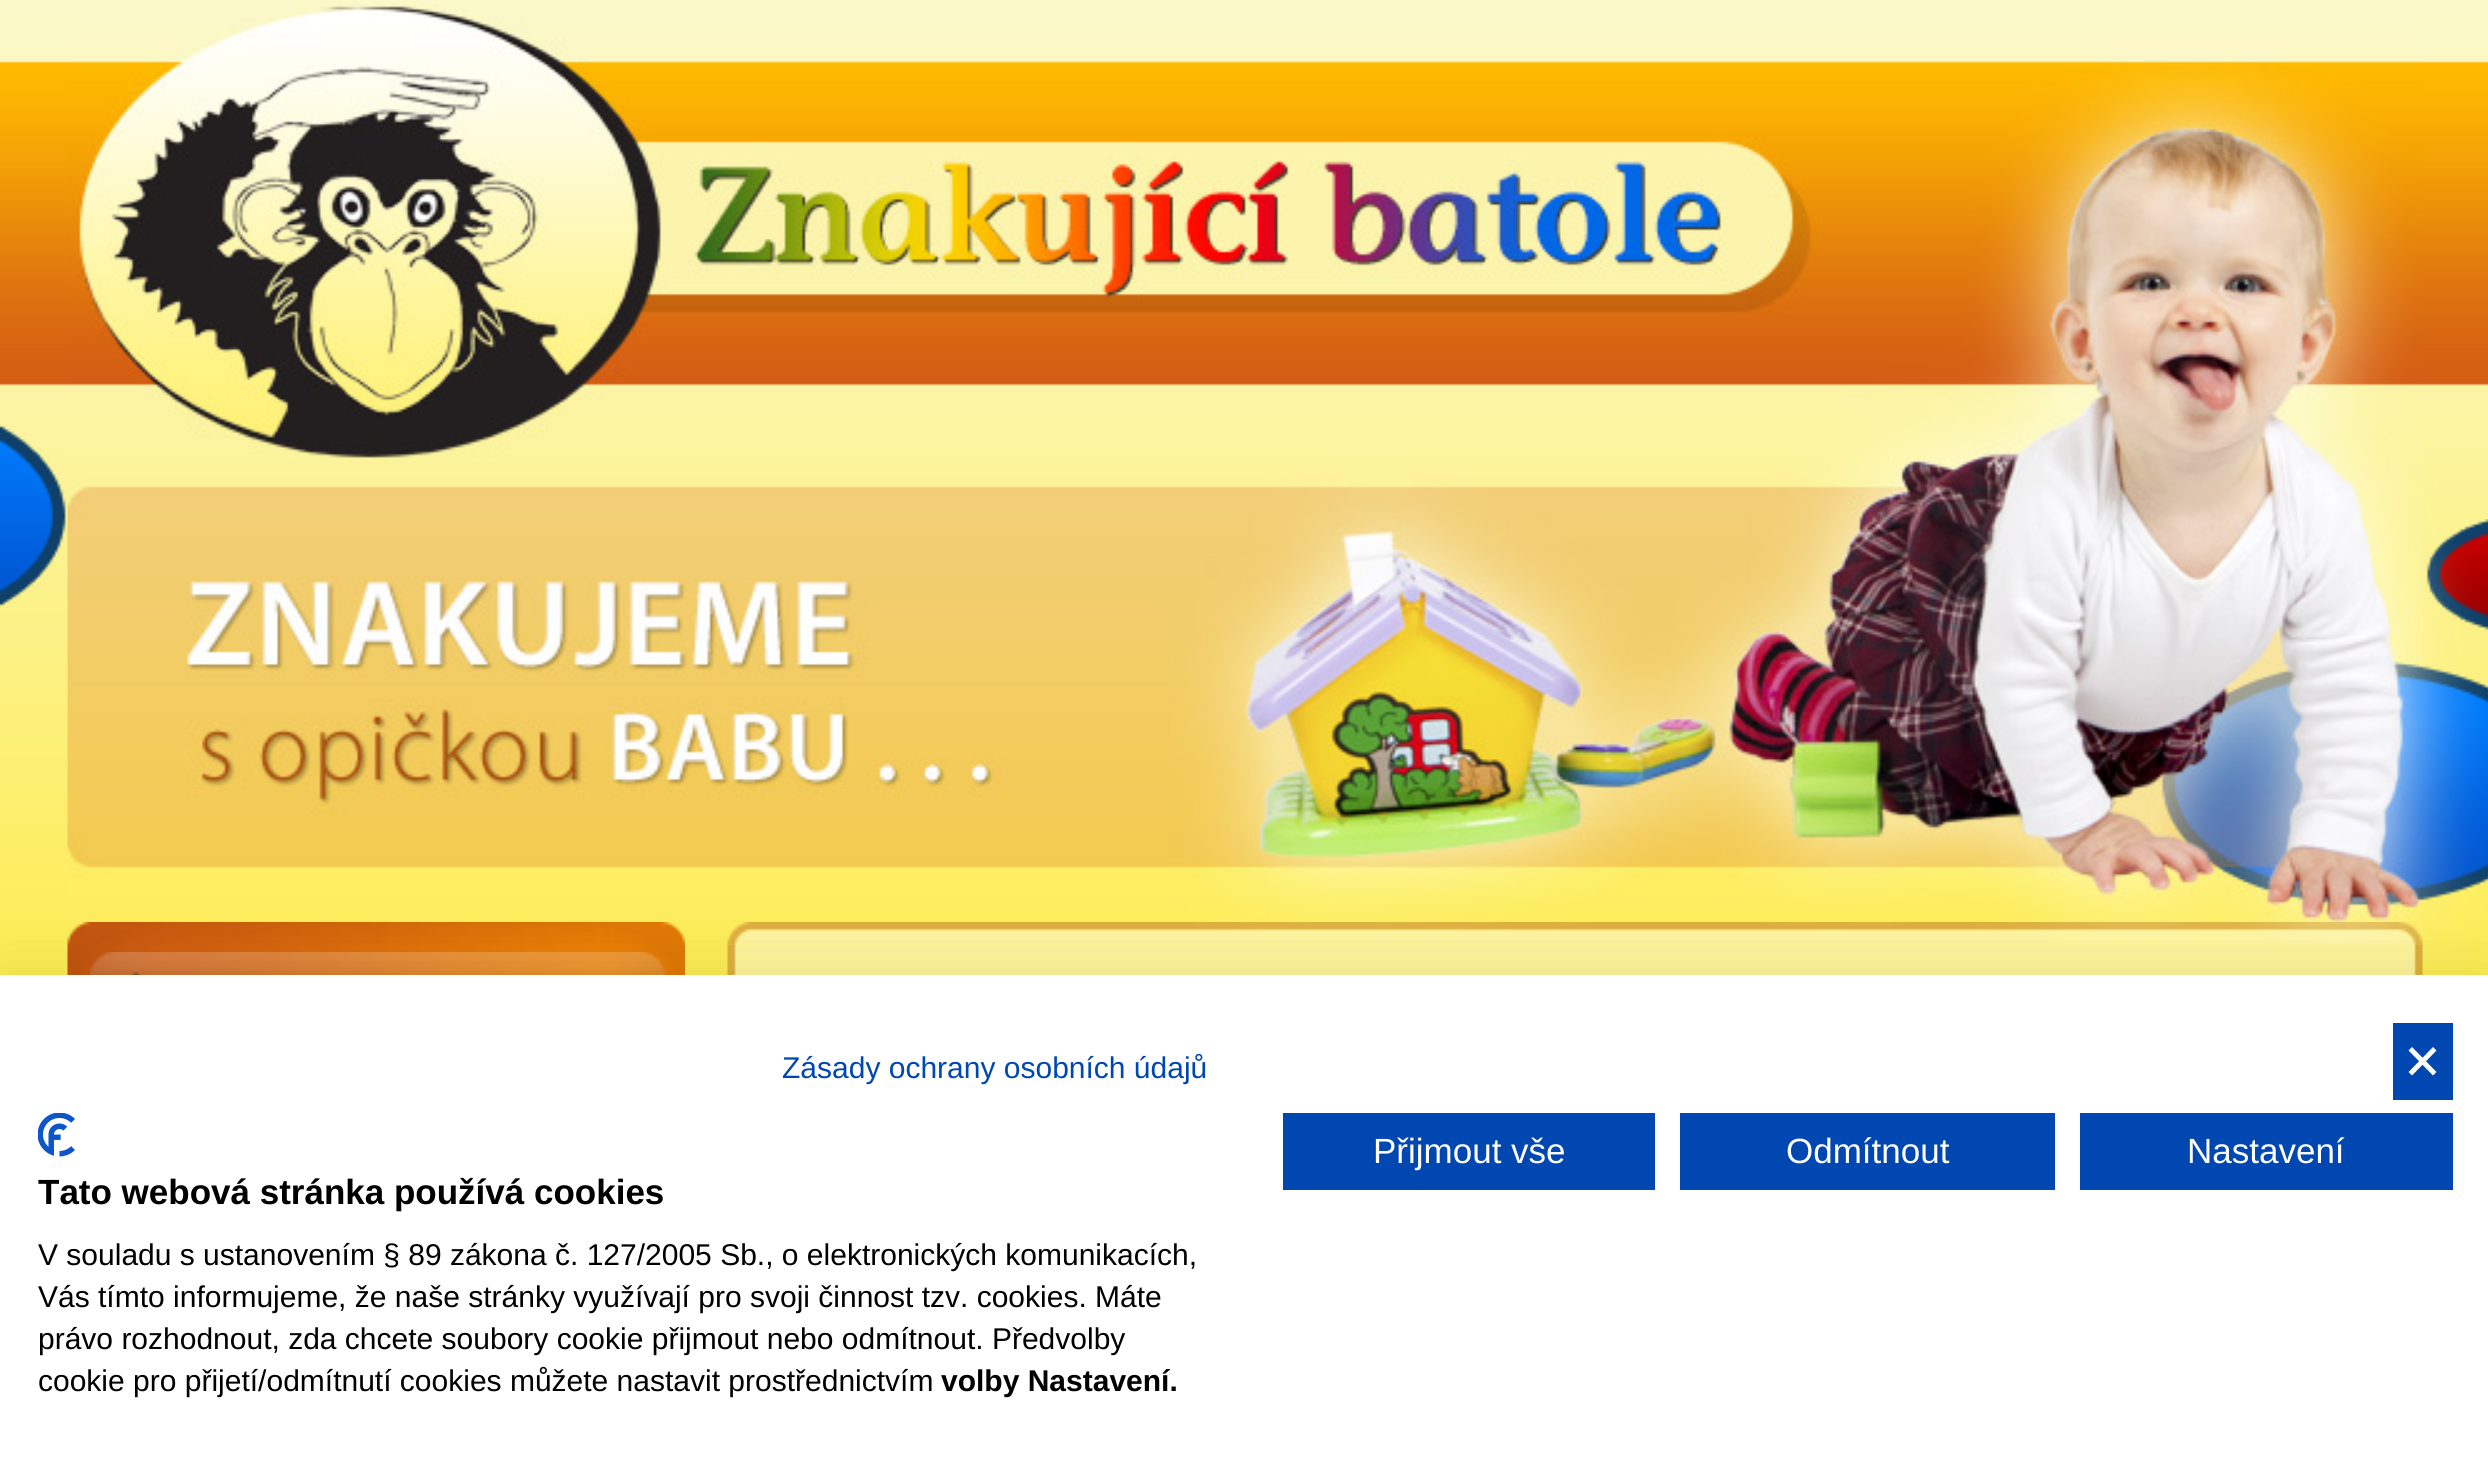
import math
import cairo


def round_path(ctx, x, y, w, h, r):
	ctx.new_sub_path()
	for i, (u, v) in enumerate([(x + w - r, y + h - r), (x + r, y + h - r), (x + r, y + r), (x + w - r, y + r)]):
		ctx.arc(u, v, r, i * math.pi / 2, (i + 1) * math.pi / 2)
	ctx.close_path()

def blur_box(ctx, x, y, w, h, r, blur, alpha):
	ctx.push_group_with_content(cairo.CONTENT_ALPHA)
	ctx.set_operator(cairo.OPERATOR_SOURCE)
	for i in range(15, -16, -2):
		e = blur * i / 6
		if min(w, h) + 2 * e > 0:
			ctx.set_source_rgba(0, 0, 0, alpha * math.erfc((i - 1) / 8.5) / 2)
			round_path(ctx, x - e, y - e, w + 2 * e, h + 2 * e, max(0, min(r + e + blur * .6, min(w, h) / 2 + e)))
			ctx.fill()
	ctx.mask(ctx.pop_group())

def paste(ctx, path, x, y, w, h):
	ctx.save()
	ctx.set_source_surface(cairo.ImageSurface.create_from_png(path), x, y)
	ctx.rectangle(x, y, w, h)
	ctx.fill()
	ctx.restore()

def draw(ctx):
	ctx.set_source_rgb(1, 1, 1)
	ctx.paint()
	paste(ctx, 'media/1.png', 0, 0, 2488, 975)
	paste(ctx, 'media/7.png', 0, 424, 2488, 539)
	paste(ctx, 'media/2.png', 67, 3, 2356, 919)
	paste(ctx, 'media/3.png', 67, 922, 618, 53)
	paste(ctx, 'media/4.png', 90, 952, 575, 23)
	paste(ctx, 'media/5.png', 727, 944, 1696, 31)
	paste(ctx, 'media/6.png', 727, 922, 1696, 23)
	ctx.set_source_rgb(0, 0, 0)
	blur_box(ctx, 0, 975, 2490, 495, 0, 30, 0.1)
	ctx.set_source_rgb(1, 1, 1)
	ctx.rectangle(0, 975, 2488, 495)
	ctx.fill()
	ctx.select_font_face('Liberation Sans')
	ctx.set_font_size(30)
	ctx.set_source_rgb(0, 0.278, 0.698)
	ctx.move_to(782, 1078)
	ctx.show_text('Zásady ochrany osobních údajů')
	ctx.rectangle(2393, 1023, 60, 77)
	ctx.fill()
	ctx.set_source_rgb(1, 1, 1)
	ctx.new_path()
	ctx.move_to(2433, 1047)
	ctx.line_to(2436.5, 1050.5)
	ctx.line_to(2412, 1075.5)
	ctx.line_to(2408.5, 1072)
	ctx.close_path()
	ctx.fill()
	ctx.new_path()
	ctx.move_to(2408.5, 1050.5)
	ctx.line_to(2412, 1047)
	ctx.line_to(2436.5, 1072)
	ctx.line_to(2433, 1075.5)
	ctx.close_path()
	ctx.fill()
	ctx.set_source_rgb(0, 0.278, 0.698)
	ctx.rectangle(1283, 1113, 372, 77)
	ctx.fill()
	ctx.set_font_size(35)
	ctx.set_source_rgb(1, 1, 1)
	ctx.move_to(1373, 1163)
	ctx.show_text('Přijmout vše')
	ctx.set_source_rgb(0, 0.278, 0.698)
	ctx.rectangle(1680, 1113, 375, 77)
	ctx.fill()
	ctx.set_source_rgb(1, 1, 1)
	ctx.move_to(1786, 1163)
	ctx.show_text('Odmítnout')
	ctx.set_source_rgb(0, 0.278, 0.698)
	ctx.rectangle(2080, 1113, 373, 77)
	ctx.fill()
	ctx.set_source_rgb(1, 1, 1)
	ctx.move_to(2187, 1163)
	ctx.show_text('Nastavení')
	paste(ctx, 'media/8.png', 38, 1113, 37, 44)
	ctx.select_font_face('Liberation Sans', cairo.FONT_SLANT_NORMAL, cairo.FONT_WEIGHT_BOLD)
	ctx.set_source_rgb(0, 0, 0)
	ctx.move_to(38, 1204)
	ctx.show_text('Tato webová stránka používá cookies')
	ctx.select_font_face('Liberation Sans')
	ctx.set_font_size(30)
	for x, y, s in [
		(38, 1265, 'V souladu s ustanovením § 89 zákona č. 127/2005 Sb., o elektronických komunikacích,'),
		(38, 1307, 'Vás tímto informujeme, že naše stránky využívají pro svoji činnost tzv. cookies. Máte'),
		(38, 1349, 'právo rozhodnout, zda chcete soubory cookie přijmout nebo odmítnout. Předvolby'),
		(38, 1391, 'cookie pro přijetí/odmítnutí cookies můžete nastavit prostřednictvím'),
	]:
		ctx.move_to(x, y)
		ctx.show_text(s)
	ctx.select_font_face('Liberation Sans', cairo.FONT_SLANT_NORMAL, cairo.FONT_WEIGHT_BOLD)
	ctx.move_to(941, 1391)
	ctx.show_text('volby Nastavení.')


surface = cairo.ImageSurface(cairo.FORMAT_RGB24, 2488, 1470)
ctx = cairo.Context(surface)
options = cairo.FontOptions()
options.set_hint_metrics(cairo.HINT_METRICS_OFF)
options.set_hint_style(cairo.HINT_STYLE_NONE)
ctx.set_font_options(options)
ctx.set_miter_limit(4)
draw(ctx)
surface.write_to_png('image.png')
